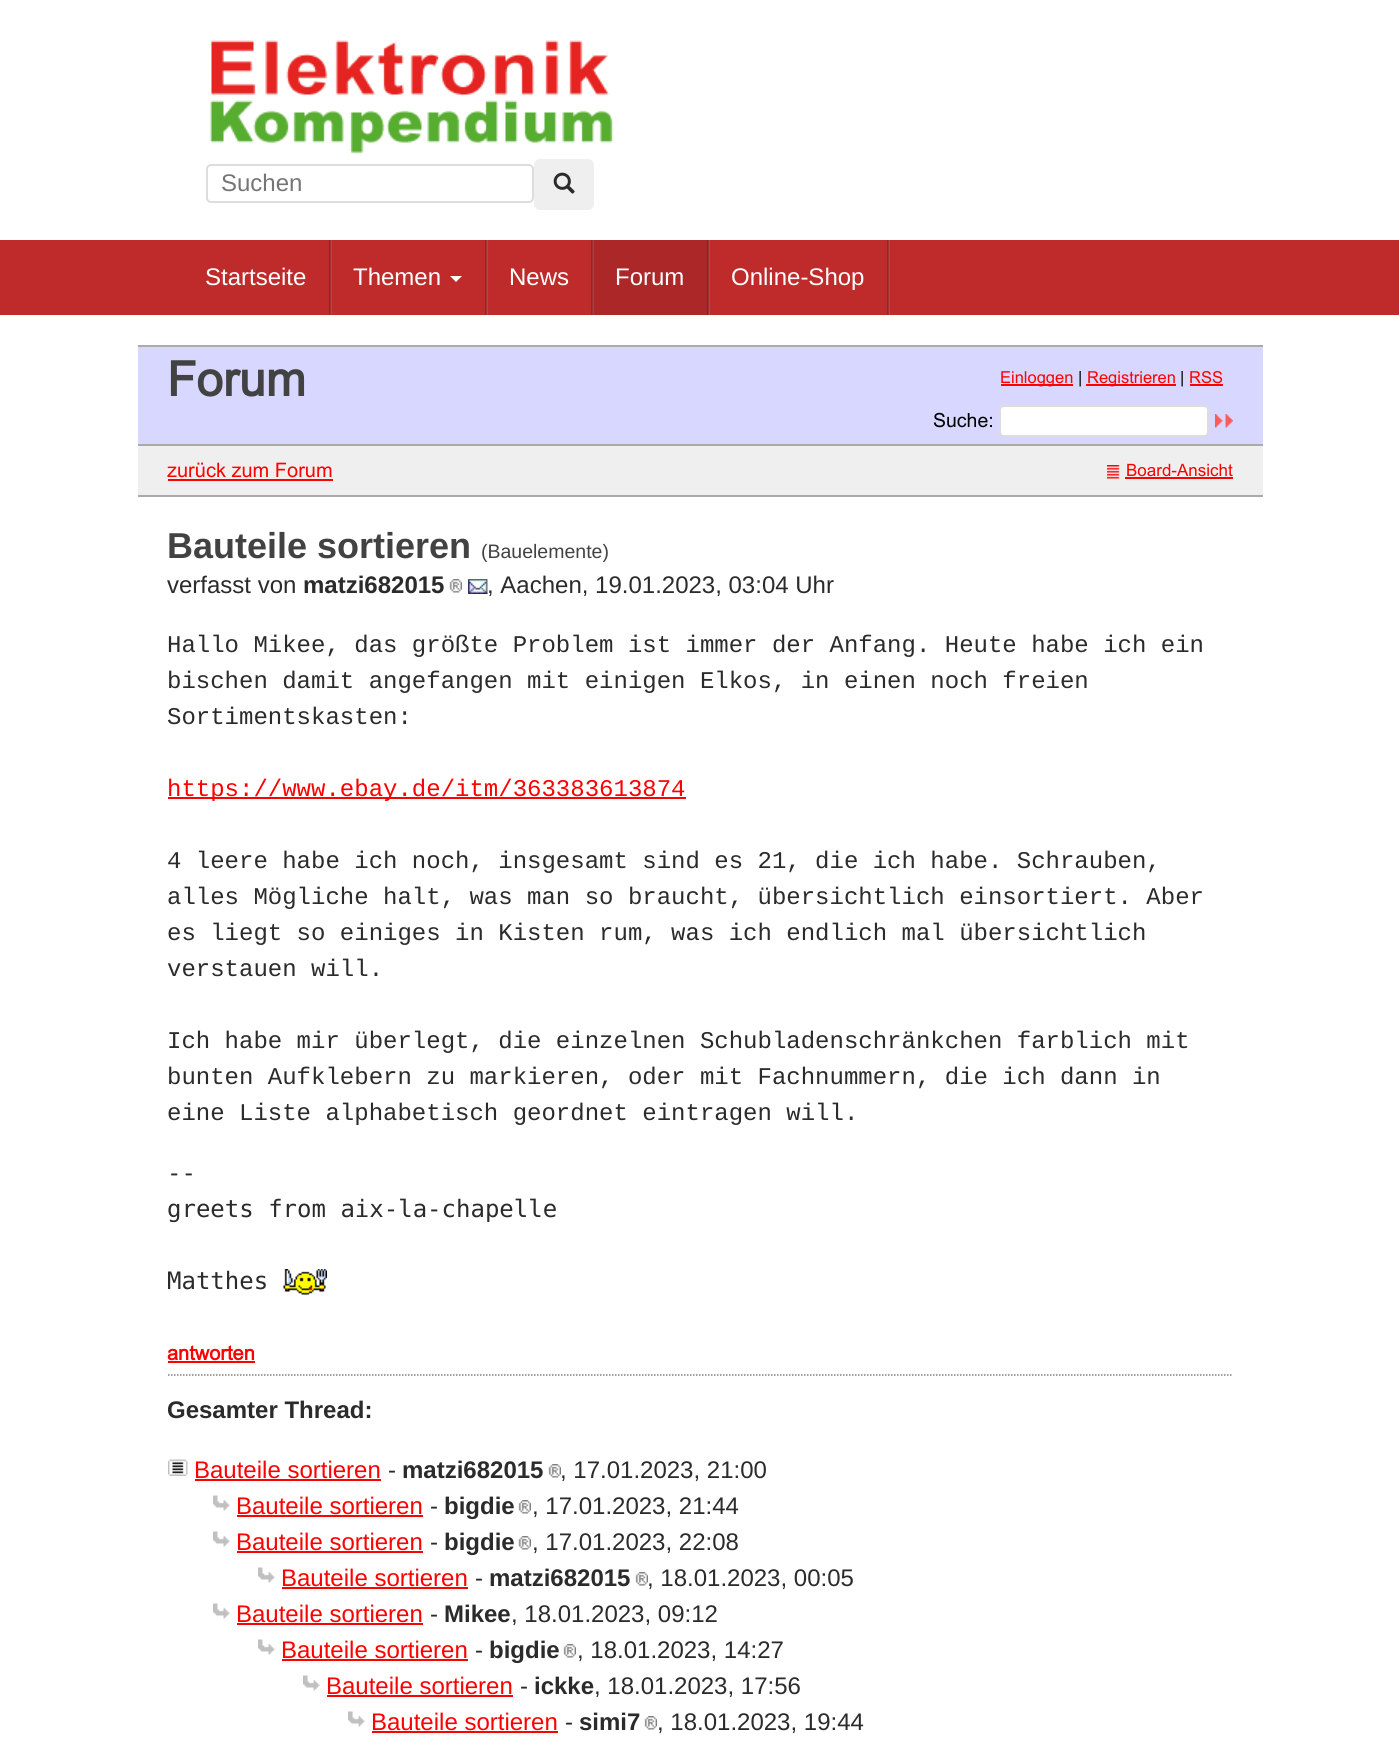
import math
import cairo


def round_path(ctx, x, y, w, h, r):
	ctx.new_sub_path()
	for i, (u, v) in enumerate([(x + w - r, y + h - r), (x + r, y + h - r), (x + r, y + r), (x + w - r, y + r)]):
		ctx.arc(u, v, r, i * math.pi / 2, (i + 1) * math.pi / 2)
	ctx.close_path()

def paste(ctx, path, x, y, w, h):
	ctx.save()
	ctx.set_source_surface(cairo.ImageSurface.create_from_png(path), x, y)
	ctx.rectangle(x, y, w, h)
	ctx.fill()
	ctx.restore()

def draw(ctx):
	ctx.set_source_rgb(1, 1, 1)
	ctx.paint()
	paste(ctx, 'media/1.png', 209, 40, 404, 114)
	round_path(ctx, 207, 165, 326, 37, 4)
	ctx.set_source_rgb(0.867, 0.867, 0.867)
	ctx.stroke()
	ctx.select_font_face('Liberation Sans')
	ctx.set_font_size(24)
	ctx.set_source_rgb(0.459, 0.459, 0.459)
	ctx.move_to(221, 191)
	ctx.show_text('Suchen')
	ctx.set_source_rgb(0.937, 0.937, 0.937)
	round_path(ctx, 534, 159, 60, 51, 6)
	ctx.fill()
	paste(ctx, 'media/2.png', 553, 172, 22, 22)
	ctx.set_source_rgb(0.749, 0.169, 0.169)
	ctx.rectangle(0, 240, 1399, 75)
	ctx.fill()
	ctx.set_source_rgb(0.6, 0.133, 0.133)
	ctx.rectangle(887, 240, 1, 75)
	ctx.fill()
	ctx.set_source_rgb(0.675, 0.153, 0.153)
	ctx.rectangle(594, 240, 113, 75)
	ctx.fill()
	ctx.set_source_rgb(0.541, 0.122, 0.122)
	ctx.rectangle(707, 240, 1, 75)
	ctx.fill()
	ctx.set_source_rgb(0.6, 0.133, 0.133)
	ctx.rectangle(591, 240, 1, 75)
	ctx.rectangle(485, 240, 1, 75)
	ctx.rectangle(329, 240, 1, 75)
	ctx.fill()
	ctx.set_source_rgb(0.773, 0.251, 0.251)
	ctx.rectangle(331, 240, 1, 75)
	ctx.fill()
	ctx.set_source_rgb(0.62, 0.2, 0.2)
	ctx.rectangle(330, 240, 1, 75)
	ctx.fill()
	ctx.set_source_rgb(1, 1, 1)
	ctx.move_to(205, 285)
	ctx.show_text('Startseite')
	ctx.set_source_rgb(0.773, 0.251, 0.251)
	ctx.rectangle(487, 240, 1, 75)
	ctx.fill()
	ctx.set_source_rgb(0.62, 0.2, 0.2)
	ctx.rectangle(486, 240, 1, 75)
	ctx.fill()
	ctx.set_source_rgb(1, 1, 1)
	ctx.move_to(353, 285)
	ctx.show_text('Themen')
	ctx.new_path()
	ctx.move_to(450, 276)
	ctx.line_to(462, 276)
	ctx.line_to(456, 282)
	ctx.close_path()
	ctx.fill()
	ctx.set_source_rgb(0.694, 0.227, 0.227)
	ctx.rectangle(593, 240, 1, 75)
	ctx.fill()
	ctx.set_source_rgb(0.62, 0.2, 0.2)
	ctx.rectangle(592, 240, 1, 75)
	ctx.fill()
	ctx.set_source_rgb(1, 1, 1)
	ctx.move_to(509, 285)
	ctx.show_text('News')
	ctx.set_source_rgb(0.773, 0.251, 0.251)
	ctx.rectangle(709, 240, 1, 75)
	ctx.fill()
	ctx.set_source_rgb(0.62, 0.2, 0.2)
	ctx.rectangle(708, 240, 1, 75)
	ctx.fill()
	ctx.set_source_rgb(1, 1, 1)
	ctx.move_to(615, 285)
	ctx.show_text('Forum')
	ctx.set_source_rgb(0.773, 0.251, 0.251)
	ctx.rectangle(889, 240, 1, 75)
	ctx.fill()
	ctx.set_source_rgb(0.62, 0.2, 0.2)
	ctx.rectangle(888, 240, 1, 75)
	ctx.fill()
	ctx.set_source_rgb(1, 1, 1)
	ctx.move_to(731, 285)
	ctx.show_text('Online-Shop')
	ctx.set_source_rgb(0.667, 0.667, 0.667)
	ctx.rectangle(138, 345, 1125, 2)
	ctx.fill()
	ctx.set_source_rgb(0.843, 0.843, 1)
	ctx.rectangle(138, 347, 1125, 97)
	ctx.fill()
	ctx.select_font_face('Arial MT', cairo.FONT_SLANT_NORMAL, cairo.FONT_WEIGHT_BOLD)
	ctx.set_font_size(48)
	ctx.set_source_rgb(0.259, 0.259, 0.259)
	ctx.move_to(167, 396)
	ctx.show_text('Forum')
	ctx.set_source_rgb(1, 0, 0)
	ctx.rectangle(1001, 384, 72, 2)
	ctx.fill()
	ctx.select_font_face('Arial MT')
	ctx.set_font_size(16.5)
	ctx.move_to(1000, 383)
	ctx.show_text('Einloggen')
	ctx.set_source_rgb(0, 0, 0)
	ctx.move_to(1078, 383)
	ctx.show_text('|')
	ctx.set_source_rgb(1, 0, 0)
	ctx.rectangle(1086, 384, 90, 2)
	ctx.fill()
	ctx.move_to(1087, 383)
	ctx.show_text('Registrieren')
	ctx.set_source_rgb(0, 0, 0)
	ctx.move_to(1180, 383)
	ctx.show_text('|')
	ctx.set_source_rgb(1, 0, 0)
	ctx.move_to(1189, 383)
	ctx.show_text('RSS')
	ctx.rectangle(1190, 384, 33, 2)
	ctx.fill()
	ctx.set_font_size(19.5)
	ctx.set_source_rgb(0, 0, 0)
	ctx.move_to(933, 427)
	ctx.show_text('Suche:')
	ctx.set_source_rgb(1, 1, 1)
	round_path(ctx, 1000, 406, 208, 30, 4)
	ctx.fill_preserve()
	ctx.set_source_rgb(0.867, 0.867, 0.867)
	ctx.stroke()
	paste(ctx, 'media/3.png', 1215, 414, 18, 14)
	ctx.set_source_rgb(0.937, 0.937, 0.937)
	ctx.rectangle(138, 446, 1125, 49)
	ctx.fill()
	ctx.set_source_rgb(0.667, 0.667, 0.667)
	ctx.rectangle(138, 444, 1125, 2)
	ctx.fill()
	ctx.set_font_size(20)
	ctx.set_source_rgb(1, 0, 0)
	ctx.move_to(167, 477)
	ctx.show_text('zurück zum Forum')
	ctx.rectangle(168, 479, 165, 2)
	ctx.fill()
	paste(ctx, 'media/4.png', 1107, 465, 13, 14)
	ctx.set_font_size(17)
	ctx.move_to(1126, 476)
	ctx.show_text('Board-Ansicht')
	ctx.rectangle(1125, 477, 108, 2)
	ctx.fill()
	ctx.set_source_rgb(0.667, 0.667, 0.667)
	ctx.rectangle(138, 495, 1125, 2)
	ctx.fill()
	ctx.select_font_face('Liberation Sans', cairo.FONT_SLANT_NORMAL, cairo.FONT_WEIGHT_BOLD)
	ctx.set_font_size(36)
	ctx.set_source_rgb(0.259, 0.259, 0.259)
	ctx.move_to(167, 558)
	ctx.show_text('Bauteile sortieren')
	ctx.select_font_face('Liberation Sans')
	ctx.set_font_size(19.5)
	ctx.move_to(481, 558)
	ctx.show_text('(Bauelemente)')
	ctx.set_font_size(24)
	ctx.set_source_rgb(0.169, 0.169, 0.169)
	ctx.move_to(167, 593)
	ctx.show_text('verfasst von')
	ctx.select_font_face('Liberation Sans', cairo.FONT_SLANT_NORMAL, cairo.FONT_WEIGHT_BOLD)
	ctx.move_to(303, 593)
	ctx.show_text('matzi682015')
	paste(ctx, 'media/5.png', 449, 579, 13, 14)
	paste(ctx, 'media/6.png', 468, 579, 20, 15)
	ctx.select_font_face('Liberation Sans')
	ctx.move_to(487, 593)
	ctx.show_text(', Aachen, 19.01.2023, 03:04 Uhr')
	ctx.select_font_face('Liberation Mono')
	for x, y, s in [
		(167, 652, 'Hallo Mikee, das größte Problem ist immer der Anfang. Heute habe ich ein'),
		(167, 688, 'bischen damit angefangen mit einigen Elkos, in einen noch freien'),
		(167, 724, 'Sortimentskasten:'),
	]:
		ctx.move_to(x, y)
		ctx.show_text(s)
	ctx.set_source_rgb(1, 0, 0)
	ctx.rectangle(168, 797, 518, 2)
	ctx.fill()
	ctx.move_to(167, 796)
	ctx.show_text('https://www.ebay.de/itm/363383613874')
	ctx.set_source_rgb(0.169, 0.169, 0.169)
	for x, y, s in [
		(167, 868, '4 leere habe ich noch, insgesamt sind es 21, die ich habe. Schrauben,'),
		(167, 904, 'alles Mögliche halt, was man so braucht, übersichtlich einsortiert. Aber'),
		(167, 940, 'es liegt so einiges in Kisten rum, was ich endlich mal übersichtlich'),
		(167, 976, 'verstauen will.'),
		(167, 1048, 'Ich habe mir überlegt, die einzelnen Schubladenschränkchen farblich mit'),
		(167, 1084, 'bunten Aufklebern zu markieren, oder mit Fachnummern, die ich dann in'),
		(167, 1120, 'eine Liste alphabetisch geordnet eintragen will.'),
	]:
		ctx.move_to(x, y)
		ctx.show_text(s)
	ctx.select_font_face('DejaVu Sans Mono')
	for x, y, s in [
		(167, 1181, '--'),
		(167, 1217, 'greets from aix-la-chapelle'),
		(167, 1289, 'Matthes'),
	]:
		ctx.move_to(x, y)
		ctx.show_text(s)
	paste(ctx, 'media/7.png', 283, 1269, 44, 26)
	ctx.select_font_face('Arial MT', cairo.FONT_SLANT_NORMAL, cairo.FONT_WEIGHT_BOLD)
	ctx.set_font_size(20)
	ctx.set_source_rgb(1, 0, 0)
	ctx.move_to(167, 1360)
	ctx.show_text('antworten')
	ctx.rectangle(168, 1361, 87, 2)
	ctx.fill()
	ctx.new_path()
	ctx.move_to(168, 1375)
	ctx.line_to(1233, 1375)
	ctx.set_source_rgb(0.502, 0.502, 0.502)
	ctx.set_line_width(1.5)
	ctx.set_dash([1.5, 1.5])
	ctx.stroke()
	ctx.select_font_face('Liberation Sans', cairo.FONT_SLANT_NORMAL, cairo.FONT_WEIGHT_BOLD)
	ctx.set_font_size(24)
	ctx.set_source_rgb(0.169, 0.169, 0.169)
	ctx.move_to(167, 1418)
	ctx.show_text('Gesamter Thread:')
	paste(ctx, 'media/8.png', 168, 1459, 20, 17)
	ctx.select_font_face('Liberation Sans')
	ctx.set_source_rgb(1, 0, 0)
	ctx.move_to(194, 1478)
	ctx.show_text('Bauteile sortieren')
	ctx.rectangle(195, 1479, 186, 2)
	ctx.fill()
	ctx.set_source_rgb(0.169, 0.169, 0.169)
	ctx.move_to(388, 1478)
	ctx.show_text('-')
	ctx.select_font_face('Liberation Sans', cairo.FONT_SLANT_NORMAL, cairo.FONT_WEIGHT_BOLD)
	ctx.move_to(402, 1478)
	ctx.show_text('matzi682015')
	paste(ctx, 'media/9.png', 548, 1464, 13, 14)
	ctx.select_font_face('Liberation Sans')
	ctx.move_to(560, 1478)
	ctx.show_text(', 17.01.2023, 21:00')
	paste(ctx, 'media/10.png', 213, 1495, 17, 16)
	ctx.set_source_rgb(1, 0, 0)
	ctx.move_to(236, 1514)
	ctx.show_text('Bauteile sortieren')
	ctx.rectangle(237, 1515, 186, 2)
	ctx.fill()
	ctx.set_source_rgb(0.169, 0.169, 0.169)
	ctx.move_to(430, 1514)
	ctx.show_text('-')
	ctx.select_font_face('Liberation Sans', cairo.FONT_SLANT_NORMAL, cairo.FONT_WEIGHT_BOLD)
	ctx.move_to(444, 1514)
	ctx.show_text('bigdie')
	paste(ctx, 'media/11.png', 518, 1500, 13, 14)
	ctx.select_font_face('Liberation Sans')
	ctx.move_to(532, 1514)
	ctx.show_text(', 17.01.2023, 21:44')
	paste(ctx, 'media/10.png', 213, 1531, 17, 16)
	ctx.set_source_rgb(1, 0, 0)
	ctx.move_to(236, 1550)
	ctx.show_text('Bauteile sortieren')
	ctx.rectangle(237, 1551, 186, 2)
	ctx.fill()
	ctx.set_source_rgb(0.169, 0.169, 0.169)
	ctx.move_to(430, 1550)
	ctx.show_text('-')
	ctx.select_font_face('Liberation Sans', cairo.FONT_SLANT_NORMAL, cairo.FONT_WEIGHT_BOLD)
	ctx.move_to(444, 1550)
	ctx.show_text('bigdie')
	paste(ctx, 'media/11.png', 518, 1536, 13, 14)
	ctx.select_font_face('Liberation Sans')
	ctx.move_to(532, 1550)
	ctx.show_text(', 17.01.2023, 22:08')
	paste(ctx, 'media/12.png', 258, 1567, 17, 16)
	ctx.set_source_rgb(1, 0, 0)
	ctx.move_to(281, 1586)
	ctx.show_text('Bauteile sortieren')
	ctx.rectangle(282, 1587, 186, 2)
	ctx.fill()
	ctx.set_source_rgb(0.169, 0.169, 0.169)
	ctx.move_to(475, 1586)
	ctx.show_text('-')
	ctx.select_font_face('Liberation Sans', cairo.FONT_SLANT_NORMAL, cairo.FONT_WEIGHT_BOLD)
	ctx.move_to(489, 1586)
	ctx.show_text('matzi682015')
	paste(ctx, 'media/9.png', 635, 1572, 13, 14)
	ctx.select_font_face('Liberation Sans')
	ctx.move_to(647, 1586)
	ctx.show_text(', 18.01.2023, 00:05')
	paste(ctx, 'media/10.png', 213, 1603, 17, 16)
	ctx.set_source_rgb(1, 0, 0)
	ctx.move_to(236, 1622)
	ctx.show_text('Bauteile sortieren')
	ctx.rectangle(237, 1623, 186, 2)
	ctx.fill()
	ctx.set_source_rgb(0.169, 0.169, 0.169)
	ctx.move_to(430, 1622)
	ctx.show_text('-')
	ctx.select_font_face('Liberation Sans', cairo.FONT_SLANT_NORMAL, cairo.FONT_WEIGHT_BOLD)
	ctx.move_to(444, 1622)
	ctx.show_text('Mikee')
	ctx.select_font_face('Liberation Sans')
	ctx.move_to(511, 1622)
	ctx.show_text(', 18.01.2023, 09:12')
	paste(ctx, 'media/12.png', 258, 1639, 17, 16)
	ctx.set_source_rgb(1, 0, 0)
	ctx.move_to(281, 1658)
	ctx.show_text('Bauteile sortieren')
	ctx.rectangle(282, 1659, 186, 2)
	ctx.fill()
	ctx.set_source_rgb(0.169, 0.169, 0.169)
	ctx.move_to(475, 1658)
	ctx.show_text('-')
	ctx.select_font_face('Liberation Sans', cairo.FONT_SLANT_NORMAL, cairo.FONT_WEIGHT_BOLD)
	ctx.move_to(489, 1658)
	ctx.show_text('bigdie')
	paste(ctx, 'media/9.png', 563, 1644, 13, 14)
	ctx.select_font_face('Liberation Sans')
	ctx.move_to(577, 1658)
	ctx.show_text(', 18.01.2023, 14:27')
	paste(ctx, 'media/13.png', 303, 1675, 17, 16)
	ctx.set_source_rgb(1, 0, 0)
	ctx.move_to(326, 1694)
	ctx.show_text('Bauteile sortieren')
	ctx.rectangle(327, 1695, 186, 2)
	ctx.fill()
	ctx.set_source_rgb(0.169, 0.169, 0.169)
	ctx.move_to(520, 1694)
	ctx.show_text('-')
	ctx.select_font_face('Liberation Sans', cairo.FONT_SLANT_NORMAL, cairo.FONT_WEIGHT_BOLD)
	ctx.move_to(534, 1694)
	ctx.show_text('ickke')
	ctx.select_font_face('Liberation Sans')
	ctx.move_to(594, 1694)
	ctx.show_text(', 18.01.2023, 17:56')
	paste(ctx, 'media/13.png', 348, 1711, 17, 16)
	ctx.set_source_rgb(1, 0, 0)
	ctx.move_to(371, 1730)
	ctx.show_text('Bauteile sortieren')
	ctx.rectangle(372, 1731, 186, 2)
	ctx.fill()
	ctx.set_source_rgb(0.169, 0.169, 0.169)
	ctx.move_to(565, 1730)
	ctx.show_text('-')
	ctx.select_font_face('Liberation Sans', cairo.FONT_SLANT_NORMAL, cairo.FONT_WEIGHT_BOLD)
	ctx.move_to(579, 1730)
	ctx.show_text('simi7')
	paste(ctx, 'media/9.png', 644, 1716, 13, 14)
	ctx.select_font_face('Liberation Sans')
	ctx.move_to(657, 1730)
	ctx.show_text(', 18.01.2023, 19:44')


surface = cairo.ImageSurface(cairo.FORMAT_RGB24, 1399, 1745)
ctx = cairo.Context(surface)
options = cairo.FontOptions()
options.set_hint_metrics(cairo.HINT_METRICS_OFF)
options.set_hint_style(cairo.HINT_STYLE_NONE)
ctx.set_font_options(options)
ctx.set_miter_limit(4)
draw(ctx)
surface.write_to_png('image.png')
